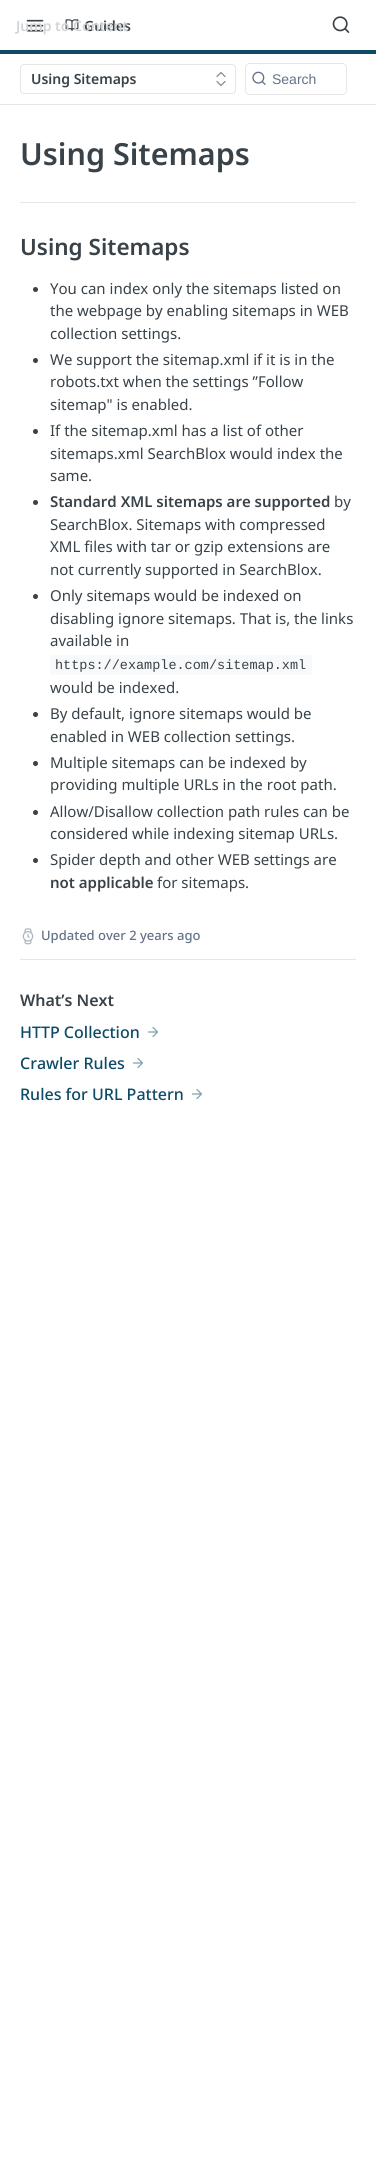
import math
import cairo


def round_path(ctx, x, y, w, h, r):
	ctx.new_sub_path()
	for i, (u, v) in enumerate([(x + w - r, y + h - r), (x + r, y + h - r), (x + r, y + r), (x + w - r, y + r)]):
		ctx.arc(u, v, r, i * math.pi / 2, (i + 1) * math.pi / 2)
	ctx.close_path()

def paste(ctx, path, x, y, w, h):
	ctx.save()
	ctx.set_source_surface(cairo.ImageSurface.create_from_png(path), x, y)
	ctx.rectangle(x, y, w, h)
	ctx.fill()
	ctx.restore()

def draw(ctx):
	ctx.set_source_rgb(1, 1, 1)
	ctx.paint()
	ctx.set_source_rgb(0.902, 0.902, 0.902)
	ctx.rectangle(0, 104, 376, 1)
	ctx.fill()
	ctx.set_source_rgb(0.051, 0.29, 0.4)
	ctx.rectangle(0, 50, 376, 4)
	ctx.fill()
	paste(ctx, 'media/2.png', 26, 19, 18, 13)
	paste(ctx, 'media/3.png', 65, 19, 14, 12)
	ctx.select_font_face('Noto Sans SemiBold')
	ctx.set_font_size(14)
	ctx.set_source_rgb(0.22, 0.259, 0.282)
	ctx.move_to(84, 31)
	ctx.show_text('Guides')
	ctx.set_source_rgb(0.824, 0.831, 0.839)
	ctx.move_to(16, 31)
	ctx.show_text('Jump to Content')
	paste(ctx, 'media/1.png', 332, 16, 18, 17)
	round_path(ctx, 20.5, 64.5, 215, 29, 3.5)
	ctx.set_source_rgb(0.902, 0.902, 0.902)
	ctx.set_line_width(1)
	ctx.stroke()
	ctx.set_source_rgb(0.22, 0.259, 0.282)
	ctx.move_to(31, 84)
	ctx.show_text('Using Sitemaps')
	ctx.new_path()
	ctx.move_to(217, 81.5)
	ctx.line_to(221, 85.5)
	ctx.line_to(225, 81.5)
	ctx.move_to(225, 76.5)
	ctx.line_to(221, 72.5)
	ctx.line_to(217, 76.5)
	ctx.set_source_rgb(0.533, 0.557, 0.569)
	ctx.set_line_width(1.3)
	ctx.set_line_cap(cairo.LINE_CAP_ROUND)
	ctx.set_line_join(cairo.LINE_JOIN_ROUND)
	ctx.stroke()
	round_path(ctx, 245.5, 63.5, 101, 31, 4.5)
	ctx.set_source_rgb(0.902, 0.902, 0.902)
	ctx.set_line_width(1)
	ctx.set_line_cap(cairo.LINE_CAP_BUTT)
	ctx.set_line_join(cairo.LINE_JOIN_MITER)
	ctx.stroke()
	ctx.set_source_rgb(1, 1, 1)
	round_path(ctx, 246, 64, 100, 30, 4)
	ctx.fill()
	paste(ctx, 'media/4.png', 252, 71, 14, 14)
	ctx.select_font_face('Liberation Sans')
	ctx.set_source_rgb(0.388, 0.447, 0.533)
	ctx.move_to(272, 84)
	ctx.show_text('Search')
	ctx.set_source_rgb(0.902, 0.902, 0.902)
	ctx.rectangle(20, 202, 336, 1)
	ctx.fill()
	ctx.select_font_face('Noto Sans SemiBold')
	ctx.set_font_size(30.5)
	ctx.set_source_rgb(0.22, 0.259, 0.282)
	ctx.move_to(20, 165)
	ctx.show_text('Using Sitemaps')
	ctx.set_font_size(22.5)
	ctx.move_to(20, 255)
	ctx.show_text('Using Sitemaps')
	ctx.new_path()
	ctx.arc(35.5, 289.5, 2.5, 0, 2 * math.pi)
	ctx.fill()
	ctx.select_font_face('Noto Sans')
	ctx.set_font_size(15)
	for x, y, s in [
		(50, 294, 'You can index only the sitemaps listed on'),
		(50, 316, 'the webpage by enabling sitemaps in WEB'),
		(50, 339, 'collection settings.'),
	]:
		ctx.move_to(x, y)
		ctx.show_text(s)
	ctx.new_path()
	ctx.arc(35.5, 360.5, 2.5, 0, 2 * math.pi)
	ctx.fill()
	for x, y, s in [
		(50, 365, 'We support the sitemap.xml if it is in the'),
		(50, 387, 'robots.txt when the settings ”Follow'),
		(50, 410, 'sitemap" is enabled.'),
	]:
		ctx.move_to(x, y)
		ctx.show_text(s)
	ctx.new_path()
	ctx.arc(35.5, 431.5, 2.5, 0, 2 * math.pi)
	ctx.fill()
	for x, y, s in [
		(50, 436, 'If the sitemap.xml has a list of other'),
		(50, 459, 'sitemaps.xml SearchBlox would index the'),
		(50, 481, 'same.'),
	]:
		ctx.move_to(x, y)
		ctx.show_text(s)
	ctx.new_path()
	ctx.arc(35.5, 502.5, 2.5, 0, 2 * math.pi)
	ctx.fill()
	ctx.select_font_face('Noto Sans SemiBold')
	ctx.move_to(50, 507)
	ctx.show_text('Standard XML sitemaps are supported')
	ctx.select_font_face('Noto Sans')
	for x, y, s in [
		(334, 507, 'by'),
		(50, 530, 'SearchBlox. Sitemaps with compressed'),
		(50, 552, 'XML files with tar or gzip extensions are'),
		(50, 575, 'not currently supported in SearchBlox.'),
	]:
		ctx.move_to(x, y)
		ctx.show_text(s)
	ctx.new_path()
	ctx.arc(35.5, 596.5, 2.5, 0, 2 * math.pi)
	ctx.fill()
	for x, y, s in [
		(50, 601, 'Only sitemaps would be indexed on'),
		(50, 624, 'disabling ignore sitemaps. That is, the links'),
		(50, 646, 'available in'),
	]:
		ctx.move_to(x, y)
		ctx.show_text(s)
	ctx.set_source_rgb(0.965, 0.973, 0.98)
	round_path(ctx, 50, 655, 262, 20, 3)
	ctx.fill()
	ctx.select_font_face('Liberation Mono')
	ctx.set_font_size(13.5)
	ctx.set_source_rgb(0.22, 0.259, 0.282)
	ctx.move_to(55, 669)
	ctx.show_text('https://example.com/sitemap.xml')
	ctx.select_font_face('Noto Sans')
	ctx.set_font_size(15)
	ctx.move_to(50, 693)
	ctx.show_text('would be indexed.')
	ctx.new_path()
	ctx.arc(35.5, 714.5, 2.5, 0, 2 * math.pi)
	ctx.fill()
	ctx.move_to(50, 719)
	ctx.show_text('By default, ignore sitemaps would be')
	ctx.move_to(50, 742)
	ctx.show_text('enabled in WEB collection settings.')
	ctx.new_path()
	ctx.arc(35.5, 763.5, 2.5, 0, 2 * math.pi)
	ctx.fill()
	ctx.move_to(50, 768)
	ctx.show_text('Multiple sitemaps can be indexed by')
	ctx.move_to(50, 790)
	ctx.show_text('providing multiple URLs in the root path.')
	ctx.new_path()
	ctx.arc(35.5, 812.5, 2.5, 0, 2 * math.pi)
	ctx.fill()
	ctx.move_to(50, 817)
	ctx.show_text('Allow/Disallow collection path rules can be')
	ctx.move_to(50, 839)
	ctx.show_text('considered while indexing sitemap URLs.')
	ctx.new_path()
	ctx.arc(35.5, 860.5, 2.5, 0, 2 * math.pi)
	ctx.fill()
	ctx.move_to(50, 865)
	ctx.show_text('Spider depth and other WEB settings are')
	ctx.select_font_face('Noto Sans SemiBold')
	ctx.move_to(50, 888)
	ctx.show_text('not applicable')
	ctx.select_font_face('Noto Sans')
	ctx.move_to(157, 888)
	ctx.show_text('for sitemaps.')
	paste(ctx, 'media/5.png', 22, 928, 12, 17)
	ctx.select_font_face('Noto Sans Medium')
	ctx.set_font_size(13)
	ctx.set_source_rgb(0.388, 0.447, 0.533)
	ctx.move_to(41, 940)
	ctx.show_text('Updated over 2 years ago')
	ctx.set_source_rgb(0.902, 0.902, 0.902)
	ctx.rectangle(20, 959, 336, 1)
	ctx.fill()
	ctx.select_font_face('Noto Sans SemiBold')
	ctx.set_font_size(16)
	ctx.set_source_rgb(0.22, 0.259, 0.282)
	ctx.move_to(20, 1006)
	ctx.show_text('What’s Next')
	ctx.select_font_face('Noto Sans Medium')
	ctx.set_source_rgb(0.051, 0.29, 0.4)
	ctx.move_to(20, 1038)
	ctx.show_text('HTTP Collection')
	ctx.new_path()
	ctx.move_to(148.5, 1032)
	ctx.line_to(157.5, 1032)
	ctx.move_to(153, 1027.5)
	ctx.line_to(157.5, 1032)
	ctx.line_to(153, 1036.5)
	ctx.move_to(133.5, 1063)
	ctx.line_to(142.5, 1063)
	ctx.move_to(138, 1058.5)
	ctx.line_to(142.5, 1063)
	ctx.line_to(138, 1067.5)
	ctx.set_source_rgb(0.525, 0.647, 0.702)
	ctx.set_line_width(1.3)
	ctx.set_line_cap(cairo.LINE_CAP_ROUND)
	ctx.set_line_join(cairo.LINE_JOIN_ROUND)
	ctx.stroke()
	ctx.set_source_rgb(0.051, 0.29, 0.4)
	ctx.move_to(20, 1069)
	ctx.show_text('Crawler Rules')
	ctx.move_to(20, 1100)
	ctx.show_text('Rules for URL Pattern')
	ctx.new_path()
	ctx.move_to(192.5, 1094)
	ctx.line_to(201.5, 1094)
	ctx.move_to(197, 1089.5)
	ctx.line_to(201.5, 1094)
	ctx.line_to(197, 1098.5)
	ctx.set_source_rgb(0.525, 0.647, 0.702)
	ctx.stroke()


surface = cairo.ImageSurface(cairo.FORMAT_RGB24, 376, 2178)
ctx = cairo.Context(surface)
options = cairo.FontOptions()
options.set_hint_metrics(cairo.HINT_METRICS_OFF)
options.set_hint_style(cairo.HINT_STYLE_NONE)
ctx.set_font_options(options)
ctx.set_miter_limit(4)
draw(ctx)
surface.write_to_png('image.png')
